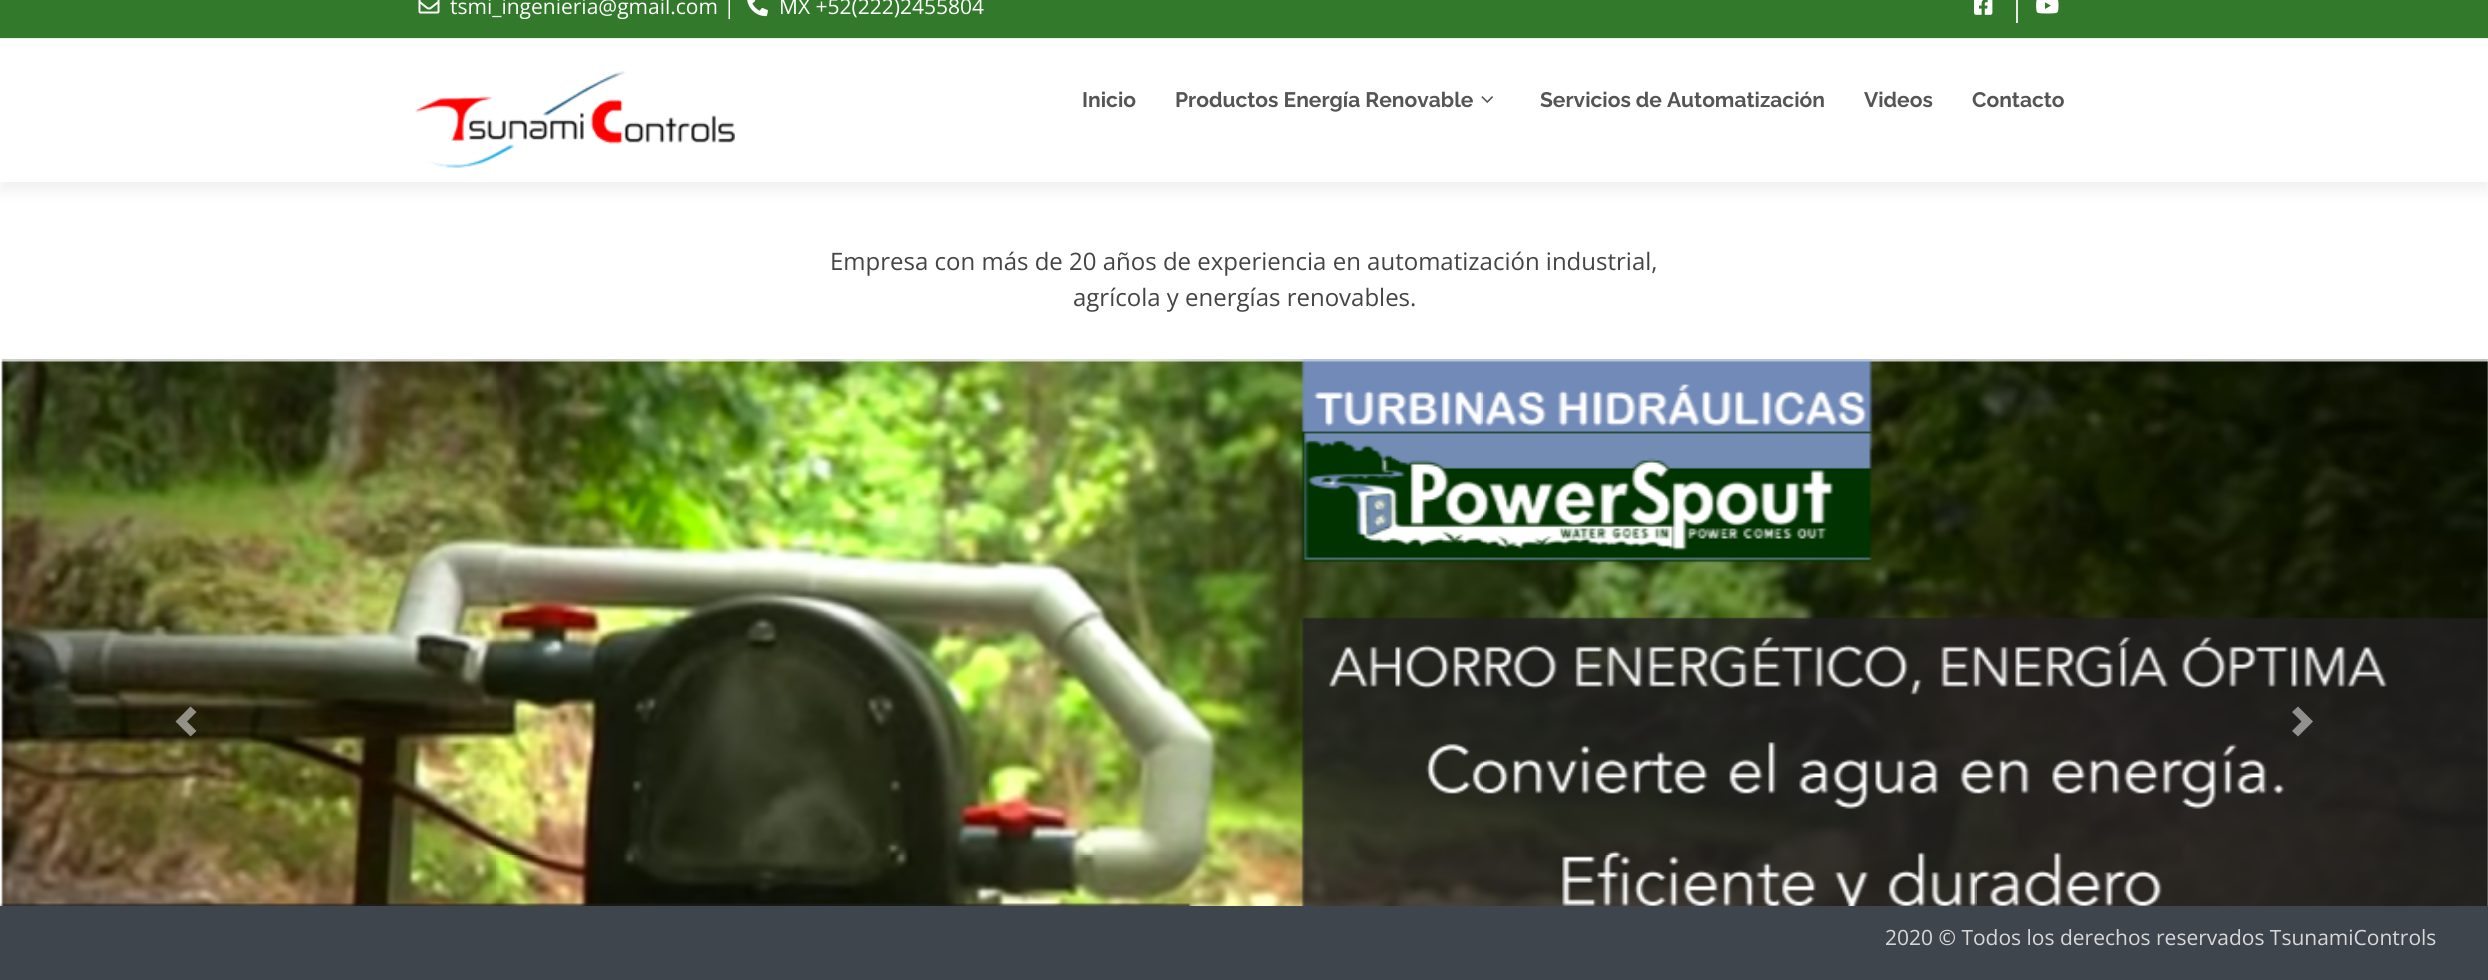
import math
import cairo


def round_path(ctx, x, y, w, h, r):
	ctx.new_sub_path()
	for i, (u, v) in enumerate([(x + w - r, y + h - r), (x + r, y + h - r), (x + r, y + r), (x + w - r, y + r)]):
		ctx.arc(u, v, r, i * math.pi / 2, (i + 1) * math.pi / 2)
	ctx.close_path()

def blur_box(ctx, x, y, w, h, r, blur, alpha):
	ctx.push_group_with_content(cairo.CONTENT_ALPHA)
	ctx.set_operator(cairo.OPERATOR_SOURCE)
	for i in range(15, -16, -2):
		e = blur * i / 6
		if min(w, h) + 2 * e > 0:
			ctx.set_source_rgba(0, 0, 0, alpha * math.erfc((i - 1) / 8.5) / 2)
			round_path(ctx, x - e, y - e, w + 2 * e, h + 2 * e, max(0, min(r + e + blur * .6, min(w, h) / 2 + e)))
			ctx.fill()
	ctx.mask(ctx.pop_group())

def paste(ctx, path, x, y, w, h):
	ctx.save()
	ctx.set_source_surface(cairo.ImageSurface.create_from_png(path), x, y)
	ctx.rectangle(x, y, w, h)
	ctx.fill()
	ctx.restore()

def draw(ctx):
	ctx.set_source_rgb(1, 1, 1)
	ctx.paint()
	ctx.set_source_rgb(0.196, 0.475, 0.169)
	ctx.rectangle(0, 0, 2488, 38)
	ctx.fill()
	ctx.set_source_rgb(0.933, 0.933, 0.933)
	ctx.rectangle(0, 38, 2488, 1)
	ctx.fill()
	paste(ctx, 'media/1.png', 418, 0, 22, 14)
	ctx.select_font_face('Open Sans')
	ctx.set_font_size(21)
	ctx.set_source_rgb(1, 1, 1)
	ctx.move_to(450, 14)
	ctx.show_text('tsmi_ingenieria@gmail.com |')
	paste(ctx, 'media/2.png', 747, 0, 21, 17)
	ctx.move_to(779, 14)
	ctx.show_text('MX +52(222)2455804')
	paste(ctx, 'media/3.png', 1974, 0, 19, 15)
	ctx.set_source_rgb(0.914, 0.914, 0.914)
	ctx.rectangle(2016, 0, 2, 23)
	ctx.fill()
	paste(ctx, 'media/4.png', 2036, 0, 23, 14)
	ctx.set_source_rgb(0, 0, 0)
	blur_box(ctx, 0, 48, 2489, 143, 0, 7, 0.06)
	ctx.set_source_rgb(1, 1, 1)
	ctx.rectangle(0, 41, 2488, 141)
	ctx.fill()
	paste(ctx, 'media/5.png', 415, 71, 320, 97)
	ctx.select_font_face('Raleway', cairo.FONT_SLANT_NORMAL, cairo.FONT_WEIGHT_BOLD)
	ctx.set_source_rgb(0.333, 0.333, 0.333)
	ctx.move_to(1082, 107)
	ctx.show_text('Inicio')
	ctx.move_to(1175, 107)
	ctx.show_text('Productos Energía Renovable')
	paste(ctx, 'media/6.png', 1481, 96, 12, 7)
	for x, y, s in [
		(1540, 107, 'Servicios de Automatización'),
		(1864, 107, 'Videos'),
		(1972, 107, 'Contacto'),
	]:
		ctx.move_to(x, y)
		ctx.show_text(s)
	ctx.select_font_face('Open Sans')
	ctx.set_font_size(24)
	ctx.set_source_rgb(0.267, 0.267, 0.267)
	ctx.move_to(830, 270)
	ctx.show_text('Empresa con más de 20 años de experiencia en automatización industrial,')
	ctx.move_to(1073, 306)
	ctx.show_text('agrícola y energías renovables.')
	paste(ctx, 'media/7.png', 0, 359, 2488, 547)
	ctx.set_source_rgba(1, 1, 1, 0.5)
	ctx.new_path()
	ctx.move_to(190.5, 706.5)
	ctx.line_to(175.5, 721.5)
	ctx.line_to(190.5, 736.5)
	ctx.line_to(196.5, 731)
	ctx.line_to(187, 721.5)
	ctx.line_to(196.5, 712)
	ctx.close_path()
	ctx.fill()
	ctx.new_path()
	ctx.move_to(2298, 706.5)
	ctx.line_to(2292, 712)
	ctx.line_to(2301.5, 721.5)
	ctx.line_to(2292, 731)
	ctx.line_to(2298, 736.5)
	ctx.line_to(2313, 721.5)
	ctx.close_path()
	ctx.fill()
	ctx.set_source_rgb(0.247, 0.271, 0.302)
	ctx.rectangle(0, 906, 2488, 74)
	ctx.fill()
	ctx.set_font_size(21)
	ctx.set_source_rgb(0.847, 0.847, 0.847)
	ctx.move_to(1885, 945)
	ctx.show_text('2020 © Todos los derechos reservados TsunamiControls')


surface = cairo.ImageSurface(cairo.FORMAT_RGB24, 2488, 980)
ctx = cairo.Context(surface)
options = cairo.FontOptions()
options.set_hint_metrics(cairo.HINT_METRICS_OFF)
options.set_hint_style(cairo.HINT_STYLE_NONE)
ctx.set_font_options(options)
ctx.set_miter_limit(4)
draw(ctx)
surface.write_to_png('image.png')
